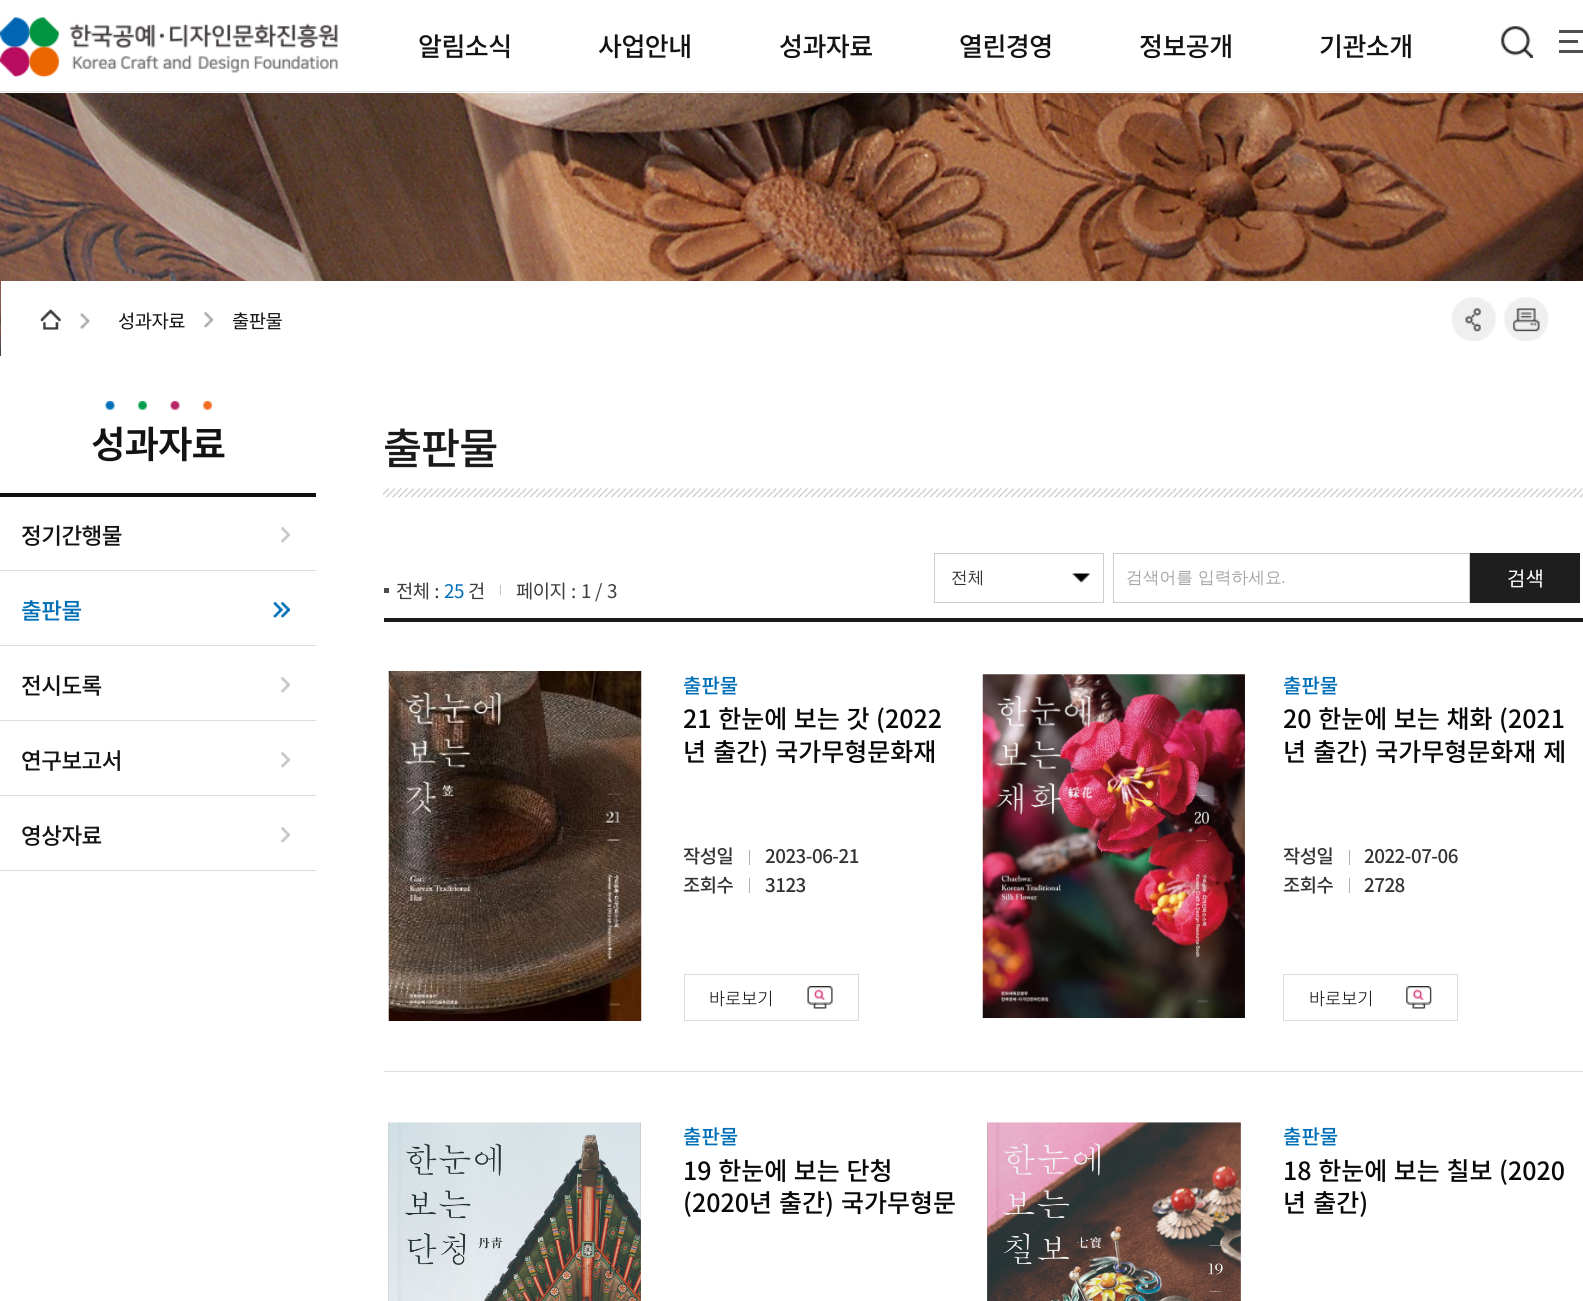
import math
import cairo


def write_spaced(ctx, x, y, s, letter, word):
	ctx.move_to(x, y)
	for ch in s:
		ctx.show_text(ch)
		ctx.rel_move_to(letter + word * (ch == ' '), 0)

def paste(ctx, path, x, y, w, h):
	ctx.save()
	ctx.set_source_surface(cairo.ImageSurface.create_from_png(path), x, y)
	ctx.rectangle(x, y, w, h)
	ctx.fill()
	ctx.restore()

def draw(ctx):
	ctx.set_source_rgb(1, 1, 1)
	ctx.paint()
	ctx.set_source_rgb(0.89, 0.89, 0.894)
	ctx.rectangle(0, 91, 1583, 1)
	ctx.fill()
	paste(ctx, 'media/1.png', 0, 17, 338, 60)
	ctx.select_font_face('Noto Sans KR Medium')
	ctx.set_font_size(26)
	ctx.set_source_rgb(0.078, 0.078, 0.078)
	for x, y, s in [
		(418, 56, '알림소식'),
		(598, 56, '사업안내'),
		(779, 56, '성과자료'),
		(959, 56, '열린경영'),
		(1139, 56, '정보공개'),
		(1319, 56, '기관소개'),
	]:
		write_spaced(ctx, x, y, s, -0.5, 0)
	paste(ctx, 'media/2.png', 1501, 26, 32, 32)
	ctx.set_source_rgb(0.31, 0.31, 0.31)
	ctx.rectangle(1559, 30, 24, 3)
	ctx.rectangle(1559, 40, 19, 3)
	ctx.rectangle(1559, 50, 24, 3)
	ctx.fill()
	paste(ctx, 'media/3.png', 0, 93, 1583, 263)
	ctx.set_source_rgb(1, 1, 1)
	ctx.rectangle(1, 281, 1582, 75)
	ctx.fill()
	paste(ctx, 'media/4.png', 40, 309, 21, 21)
	paste(ctx, 'media/5.png', 80, 313, 10, 16)
	ctx.select_font_face('Noto Sans KR')
	ctx.set_font_size(18.75)
	ctx.set_source_rgb(0.078, 0.078, 0.078)
	write_spaced(ctx, 118, 328, '성과자료', -0.5, 0)
	paste(ctx, 'media/6.png', 204, 312, 10, 16)
	write_spaced(ctx, 232, 328, '출판물', -0.5, 0)
	paste(ctx, 'media/7.png', 1452, 297, 44, 44)
	paste(ctx, 'media/8.png', 1504, 297, 44, 44)
	paste(ctx, 'media/9.png', 105, 401, 107, 9)
	ctx.select_font_face('Noto Sans KR SemiBold')
	ctx.set_font_size(37.5)
	write_spaced(ctx, 91, 458, '성과자료', -1, 0)
	ctx.set_source_rgb(0.063, 0.063, 0.063)
	ctx.rectangle(0, 493, 316, 4)
	ctx.fill()
	ctx.set_source_rgb(0.867, 0.867, 0.867)
	ctx.rectangle(0, 870, 316, 1)
	ctx.fill()
	paste(ctx, 'media/10.png', 281, 527, 9, 16)
	ctx.select_font_face('Noto Sans KR Medium')
	ctx.set_font_size(22.5)
	ctx.set_source_rgb(0.078, 0.078, 0.078)
	write_spaced(ctx, 21, 544, '정기간행물', -0.5, 0)
	ctx.set_source_rgb(0.867, 0.867, 0.867)
	ctx.rectangle(0, 570, 316, 1)
	ctx.fill()
	paste(ctx, 'media/11.png', 273, 602, 17, 16)
	ctx.set_source_rgb(0, 0.435, 0.718)
	write_spaced(ctx, 21, 619, '출판물', -0.5, 0)
	ctx.set_source_rgb(0.867, 0.867, 0.867)
	ctx.rectangle(0, 645, 316, 1)
	ctx.fill()
	paste(ctx, 'media/10.png', 281, 677, 9, 16)
	ctx.set_source_rgb(0.078, 0.078, 0.078)
	write_spaced(ctx, 21, 694, '전시도록', -0.5, 0)
	ctx.set_source_rgb(0.867, 0.867, 0.867)
	ctx.rectangle(0, 720, 316, 1)
	ctx.fill()
	paste(ctx, 'media/10.png', 281, 752, 9, 16)
	ctx.set_source_rgb(0.078, 0.078, 0.078)
	write_spaced(ctx, 21, 769, '연구보고서', -0.5, 0)
	ctx.set_source_rgb(0.867, 0.867, 0.867)
	ctx.rectangle(0, 795, 316, 1)
	ctx.fill()
	paste(ctx, 'media/10.png', 281, 827, 9, 16)
	ctx.set_source_rgb(0.078, 0.078, 0.078)
	write_spaced(ctx, 21, 844, '영상자료', -0.5, 0)
	ctx.set_font_size(42.5)
	ctx.set_source_rgb(0.102, 0.102, 0.102)
	write_spaced(ctx, 383, 464, '출판물', -1, 0)
	paste(ctx, 'media/12.png', 383, 488, 1200, 10)
	paste(ctx, 'media/13.png', 1072, 573, 18, 10)
	ctx.rectangle(934.5, 553.5, 169, 49)
	ctx.set_source_rgb(0.8, 0.8, 0.8)
	ctx.set_line_width(1)
	ctx.stroke()
	ctx.select_font_face('WenQuanYi Zen Hei Medium')
	ctx.set_font_size(16.75)
	ctx.set_source_rgb(0.2, 0.2, 0.2)
	ctx.move_to(951, 583)
	ctx.show_text('전체')
	ctx.rectangle(1113.5, 553.5, 356, 49)
	ctx.set_source_rgb(0.8, 0.8, 0.8)
	ctx.stroke()
	ctx.set_source_rgb(0.647, 0.647, 0.647)
	ctx.move_to(1126, 583)
	ctx.show_text('검색어를 입력하세요')
	ctx.select_font_face('Liberation Sans')
	ctx.move_to(1281, 583)
	ctx.show_text('.')
	ctx.set_source_rgb(0.118, 0.118, 0.118)
	ctx.rectangle(1470, 553, 110, 50)
	ctx.fill()
	ctx.select_font_face('Noto Sans KR')
	ctx.set_font_size(20)
	ctx.set_source_rgb(1, 1, 1)
	ctx.move_to(1507, 586)
	ctx.show_text('검색')
	ctx.set_source_rgb(0.298, 0.298, 0.298)
	ctx.rectangle(384, 588, 5, 5)
	ctx.fill()
	ctx.set_font_size(18.75)
	ctx.set_source_rgb(0.239, 0.239, 0.239)
	write_spaced(ctx, 396, 598, '전체 :', -0.5, 1)
	ctx.set_source_rgb(0, 0.435, 0.718)
	write_spaced(ctx, 444, 598, '25', -0.5, 0)
	ctx.set_source_rgb(0.239, 0.239, 0.239)
	write_spaced(ctx, 468, 598, '건', -0.5, 0)
	ctx.set_source_rgb(0.761, 0.761, 0.761)
	ctx.rectangle(500, 585, 1, 10)
	ctx.fill()
	ctx.set_source_rgb(0.239, 0.239, 0.239)
	write_spaced(ctx, 516, 598, '페이지 :', -0.5, 1)
	for x, y, s in [
		(581, 598, '1'),
		(595, 598, '/'),
		(607, 598, '3'),
	]:
		write_spaced(ctx, x, y, s, -0.5, 0)
	ctx.set_source_rgb(0.106, 0.106, 0.106)
	ctx.rectangle(384, 618, 1199, 4)
	ctx.fill()
	paste(ctx, 'media/14.png', 388, 671, 254, 350)
	ctx.select_font_face('Noto Sans KR Medium')
	ctx.set_font_size(20)
	ctx.set_source_rgb(0, 0.435, 0.718)
	ctx.move_to(683, 693)
	ctx.show_text('출판물')
	ctx.set_font_size(25)
	ctx.set_source_rgb(0.035, 0.035, 0.035)
	write_spaced(ctx, 683, 728, '21 한눈에 보는 갓 (2022', 0, 1)
	write_spaced(ctx, 683, 761, '년 출간) 국가무형문화재', 0, 1.5)
	ctx.set_font_size(18.75)
	ctx.set_source_rgb(0.2, 0.2, 0.2)
	write_spaced(ctx, 683, 863, '작성일', -0.5, 0)
	ctx.set_source_rgb(0.682, 0.682, 0.682)
	ctx.rectangle(749, 850, 1, 15)
	ctx.fill()
	ctx.set_source_rgb(0.2, 0.2, 0.2)
	write_spaced(ctx, 765, 863, '2023-06-21', -0.5, 0)
	write_spaced(ctx, 683, 892, '조회수', -0.5, 0)
	ctx.set_source_rgb(0.682, 0.682, 0.682)
	ctx.rectangle(749, 878, 1, 15)
	ctx.fill()
	ctx.set_source_rgb(0.2, 0.2, 0.2)
	write_spaced(ctx, 765, 892, '3123', -0.5, 0)
	paste(ctx, 'media/15.png', 807, 986, 26, 23)
	ctx.rectangle(684.5, 974.5, 174, 46)
	ctx.set_source_rgb(0.859, 0.859, 0.859)
	ctx.stroke()
	ctx.select_font_face('Noto Sans KR Light')
	ctx.set_font_size(17.5)
	ctx.set_source_rgb(0, 0, 0)
	ctx.move_to(709, 1005)
	ctx.show_text('바로보기')
	paste(ctx, 'media/16.png', 982, 674, 263, 345)
	ctx.select_font_face('Noto Sans KR Medium')
	ctx.set_font_size(20)
	ctx.set_source_rgb(0, 0.435, 0.718)
	ctx.move_to(1283, 693)
	ctx.show_text('출판물')
	ctx.set_font_size(25)
	ctx.set_source_rgb(0.035, 0.035, 0.035)
	write_spaced(ctx, 1283, 728, '20 한눈에 보는 채화 (2021', 0, 1)
	write_spaced(ctx, 1283, 761, '년 출간) 국가무형문화재 제', 0, 1.5)
	ctx.set_font_size(18.75)
	ctx.set_source_rgb(0.2, 0.2, 0.2)
	write_spaced(ctx, 1283, 863, '작성일', -0.5, 0)
	ctx.set_source_rgb(0.682, 0.682, 0.682)
	ctx.rectangle(1349, 850, 1, 15)
	ctx.fill()
	ctx.set_source_rgb(0.2, 0.2, 0.2)
	write_spaced(ctx, 1364, 863, '2022-07-06', -0.5, 0)
	write_spaced(ctx, 1283, 892, '조회수', -0.5, 0)
	ctx.set_source_rgb(0.682, 0.682, 0.682)
	ctx.rectangle(1349, 878, 1, 15)
	ctx.fill()
	ctx.set_source_rgb(0.2, 0.2, 0.2)
	write_spaced(ctx, 1364, 892, '2728', -0.5, 0)
	paste(ctx, 'media/17.png', 1406, 986, 26, 23)
	ctx.rectangle(1283.5, 974.5, 174, 46)
	ctx.set_source_rgb(0.859, 0.859, 0.859)
	ctx.stroke()
	ctx.select_font_face('Noto Sans KR Light')
	ctx.set_font_size(17.5)
	ctx.set_source_rgb(0, 0, 0)
	ctx.move_to(1309, 1005)
	ctx.show_text('바로보기')
	ctx.set_source_rgb(0.871, 0.871, 0.871)
	ctx.rectangle(384, 1071, 1199, 1)
	ctx.fill()
	paste(ctx, 'media/18.png', 388, 1122, 253, 179)
	ctx.select_font_face('Noto Sans KR Medium')
	ctx.set_font_size(20)
	ctx.set_source_rgb(0, 0.435, 0.718)
	ctx.move_to(683, 1144)
	ctx.show_text('출판물')
	ctx.set_font_size(25)
	ctx.set_source_rgb(0.035, 0.035, 0.035)
	write_spaced(ctx, 683, 1180, '19 한눈에 보는 단청', 0, 1)
	write_spaced(ctx, 683, 1212, '(2020년 출간) 국가무형문', 0, 1.5)
	paste(ctx, 'media/19.png', 987, 1122, 254, 179)
	ctx.set_font_size(20)
	ctx.set_source_rgb(0, 0.435, 0.718)
	ctx.move_to(1283, 1144)
	ctx.show_text('출판물')
	ctx.set_font_size(25)
	ctx.set_source_rgb(0.035, 0.035, 0.035)
	write_spaced(ctx, 1283, 1180, '18 한눈에 보는 칠보 (2020', 0, 1)
	write_spaced(ctx, 1283, 1212, '년 출간)', 0, 1.5)


surface = cairo.ImageSurface(cairo.FORMAT_RGB24, 1583, 1301)
ctx = cairo.Context(surface)
options = cairo.FontOptions()
options.set_hint_metrics(cairo.HINT_METRICS_OFF)
options.set_hint_style(cairo.HINT_STYLE_NONE)
ctx.set_font_options(options)
ctx.set_miter_limit(4)
draw(ctx)
surface.write_to_png('image.png')
